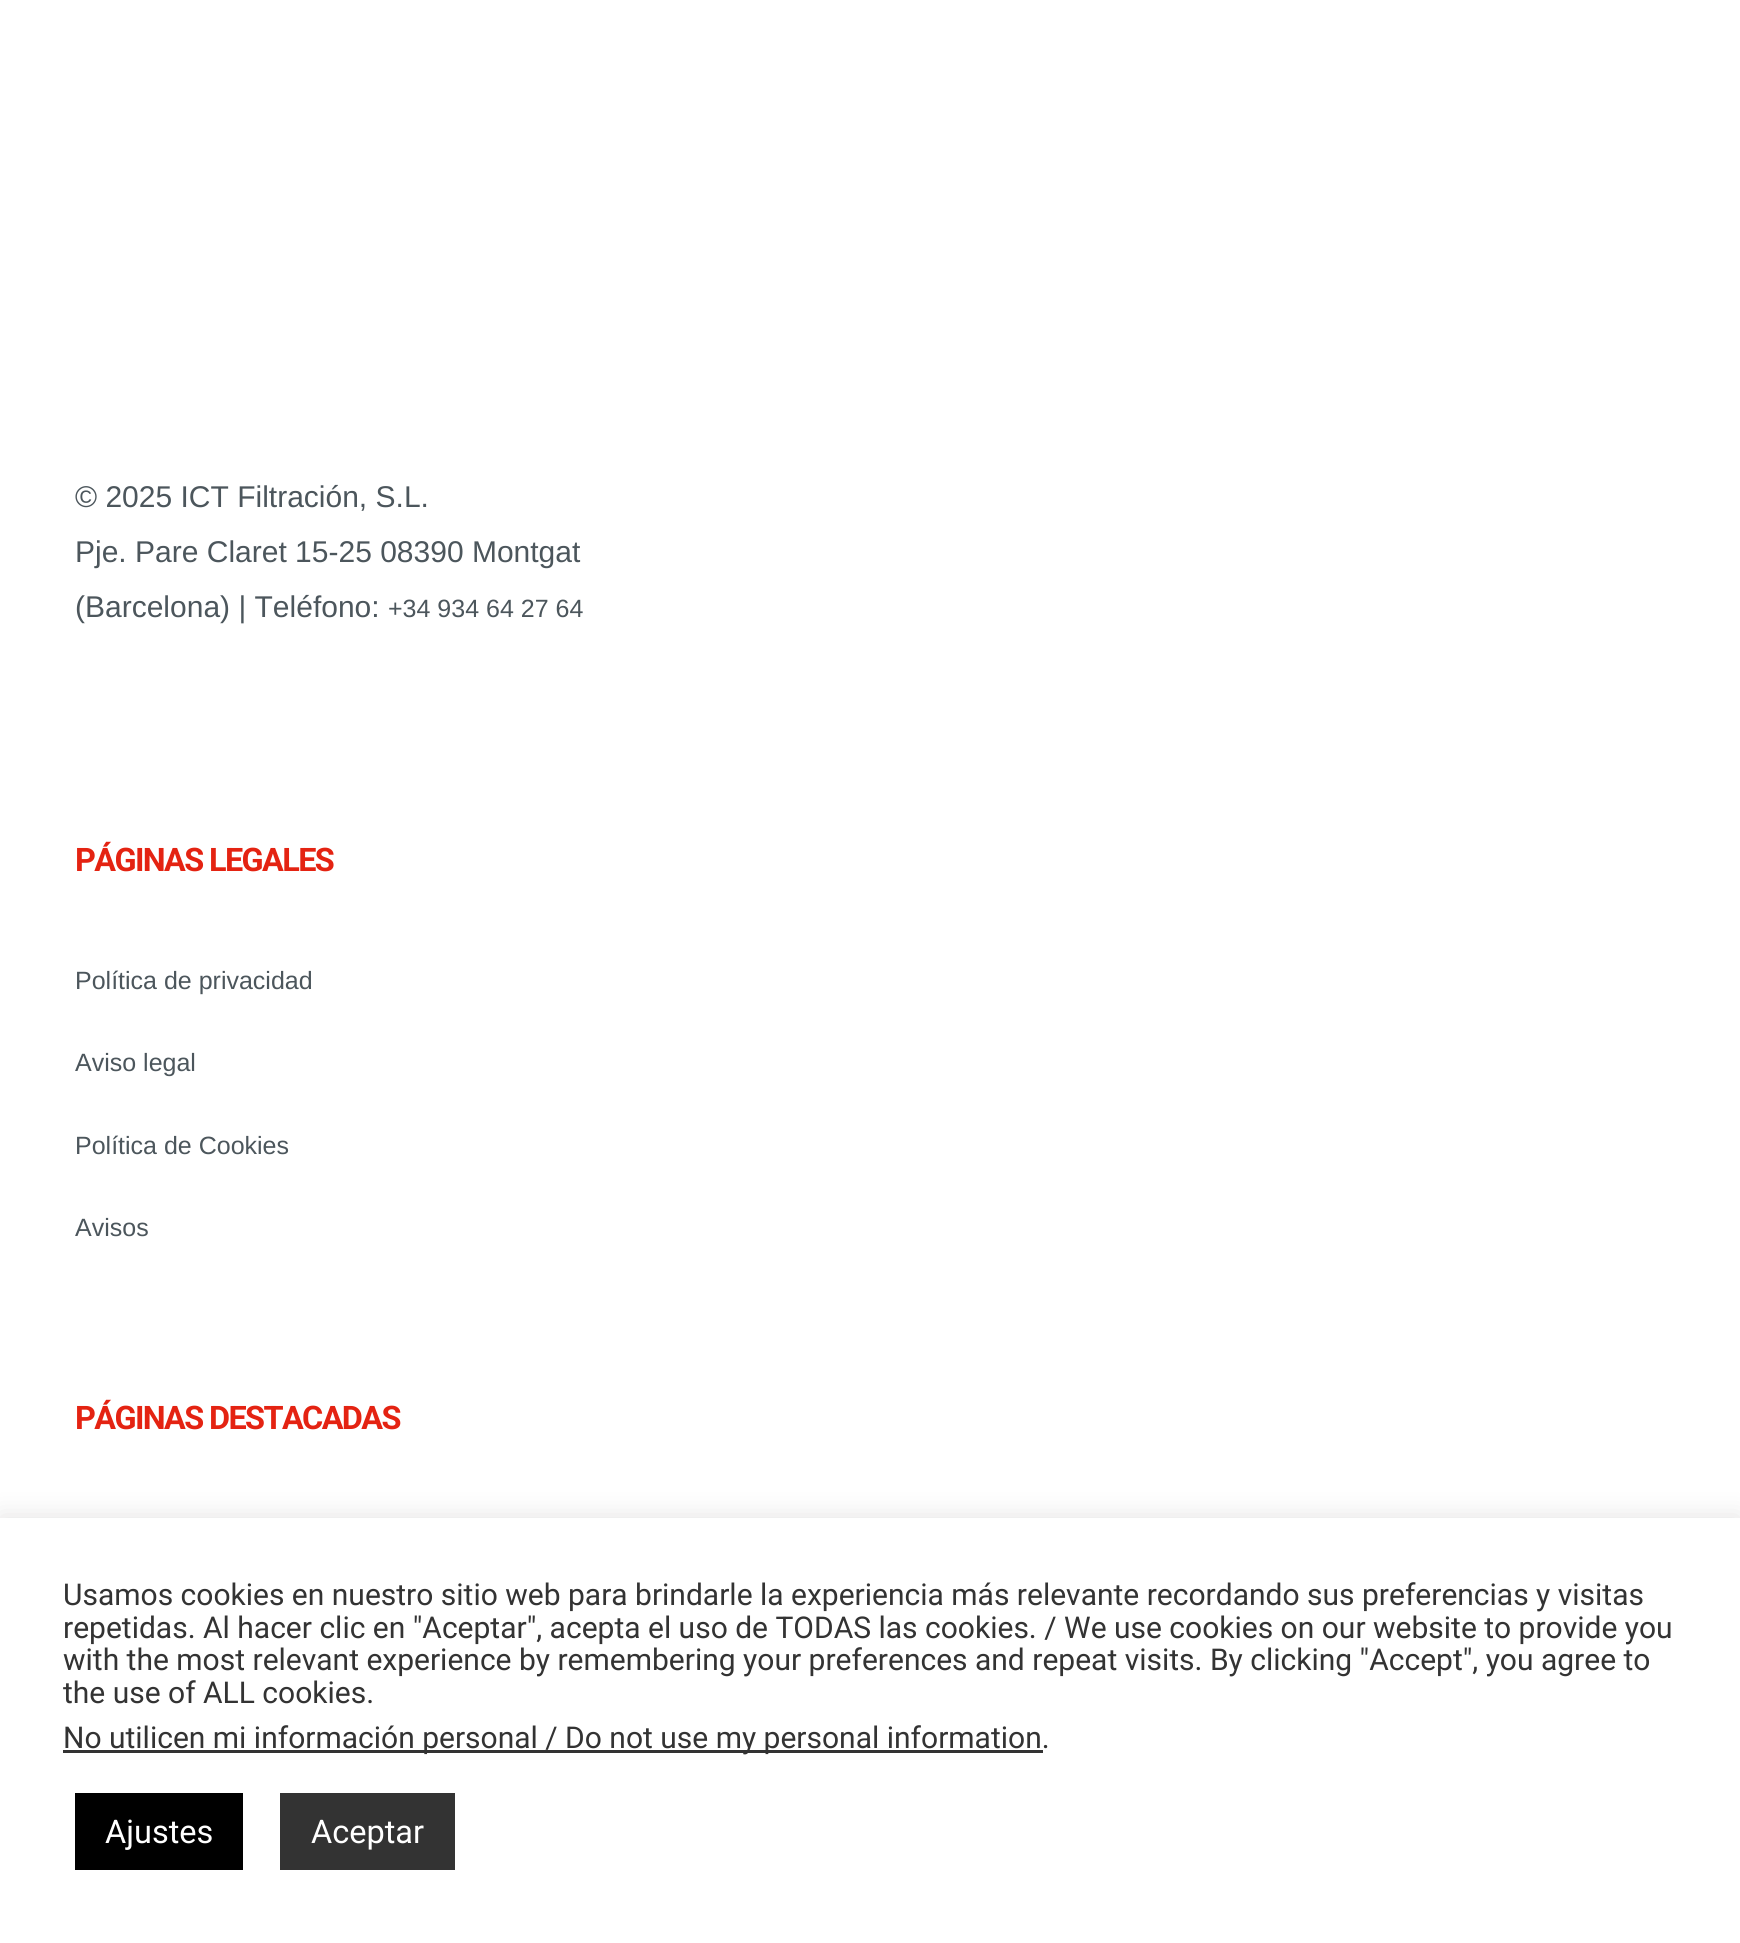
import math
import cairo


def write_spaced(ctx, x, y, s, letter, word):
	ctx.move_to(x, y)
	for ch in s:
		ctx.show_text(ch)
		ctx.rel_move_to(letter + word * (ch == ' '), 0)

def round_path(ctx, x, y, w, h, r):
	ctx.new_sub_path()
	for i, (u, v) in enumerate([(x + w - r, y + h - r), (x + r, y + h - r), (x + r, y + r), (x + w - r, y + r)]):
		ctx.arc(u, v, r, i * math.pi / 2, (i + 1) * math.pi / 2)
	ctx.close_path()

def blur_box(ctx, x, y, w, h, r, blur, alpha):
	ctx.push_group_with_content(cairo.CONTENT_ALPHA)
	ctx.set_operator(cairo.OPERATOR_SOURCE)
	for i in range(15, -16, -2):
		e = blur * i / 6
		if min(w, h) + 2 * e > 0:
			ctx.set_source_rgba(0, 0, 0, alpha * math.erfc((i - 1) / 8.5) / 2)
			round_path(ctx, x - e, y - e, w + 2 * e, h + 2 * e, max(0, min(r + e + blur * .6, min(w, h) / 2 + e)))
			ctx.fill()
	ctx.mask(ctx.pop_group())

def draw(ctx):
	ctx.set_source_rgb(1, 1, 1)
	ctx.paint()
	ctx.select_font_face('Liberation Sans')
	ctx.set_font_size(30)
	ctx.set_source_rgb(0.298, 0.337, 0.361)
	for x, y, s in [
		(75, 507, '© 2025 ICT Filtración, S.L.'),
		(75, 562, 'Pje. Pare Claret 15-25 08390 Montgat'),
		(75, 617, '(Barcelona) | Teléfono:'),
	]:
		ctx.move_to(x, y)
		ctx.show_text(s)
	ctx.set_font_size(25)
	ctx.move_to(388, 617)
	ctx.show_text('+34 934 64 27 64')
	ctx.select_font_face('Roboto', cairo.FONT_SLANT_NORMAL, cairo.FONT_WEIGHT_BOLD)
	ctx.set_font_size(32.4)
	ctx.set_source_rgb(0.894, 0.137, 0.071)
	write_spaced(ctx, 75, 871, 'PÁGINAS LEGALES', -1.6, 0)
	ctx.select_font_face('Liberation Sans')
	ctx.set_font_size(25)
	ctx.set_source_rgb(0.298, 0.337, 0.361)
	for x, y, s in [
		(75, 989, 'Política de privacidad'),
		(75, 1071, 'Aviso legal'),
		(75, 1154, 'Política de Cookies'),
		(75, 1236, 'Avisos'),
	]:
		ctx.move_to(x, y)
		ctx.show_text(s)
	ctx.select_font_face('Roboto', cairo.FONT_SLANT_NORMAL, cairo.FONT_WEIGHT_BOLD)
	ctx.set_font_size(32.4)
	ctx.set_source_rgb(0.894, 0.137, 0.071)
	write_spaced(ctx, 75, 1429, 'PÁGINAS DESTACADAS', -1.6, 0)
	ctx.set_source_rgb(0.675, 0.671, 0.671)
	blur_box(ctx, 0, 1515, 1740, 428, 0, 12.5, 0.3)
	ctx.set_source_rgb(1, 1, 1)
	ctx.rectangle(0, 1518, 1740, 425)
	ctx.fill()
	ctx.select_font_face('Roboto')
	ctx.set_font_size(30)
	ctx.set_source_rgb(0.2, 0.2, 0.2)
	for x, y, s in [
		(63, 1605, 'Usamos cookies en nuestro sitio web para brindarle la experiencia más relevante recordando sus preferencias y visitas'),
		(63, 1638, 'repetidas. Al hacer clic en "Aceptar", acepta el uso de TODAS las cookies. / We use cookies on our website to provide you'),
		(63, 1670, 'with the most relevant experience by remembering your preferences and repeat visits. By clicking "Accept", you agree to'),
		(63, 1703, 'the use of ALL cookies.'),
	]:
		ctx.move_to(x, y)
		ctx.show_text(s)
	ctx.rectangle(63, 1750, 980, 3)
	ctx.fill()
	ctx.move_to(63, 1748)
	ctx.show_text('No utilicen mi información personal / Do not use my personal information.')
	ctx.set_source_rgb(0, 0, 0)
	ctx.rectangle(75, 1793, 168, 77)
	ctx.fill()
	ctx.set_font_size(32.5)
	ctx.set_source_rgb(1, 1, 1)
	ctx.move_to(105, 1843)
	ctx.show_text('Ajustes')
	ctx.set_source_rgb(0.2, 0.2, 0.2)
	ctx.rectangle(280, 1793, 175, 77)
	ctx.fill()
	ctx.set_source_rgb(1, 1, 1)
	ctx.move_to(311, 1843)
	ctx.show_text('Aceptar')


surface = cairo.ImageSurface(cairo.FORMAT_RGB24, 1740, 1943)
ctx = cairo.Context(surface)
options = cairo.FontOptions()
options.set_hint_metrics(cairo.HINT_METRICS_OFF)
options.set_hint_style(cairo.HINT_STYLE_NONE)
ctx.set_font_options(options)
ctx.set_miter_limit(4)
draw(ctx)
surface.write_to_png('image.png')
